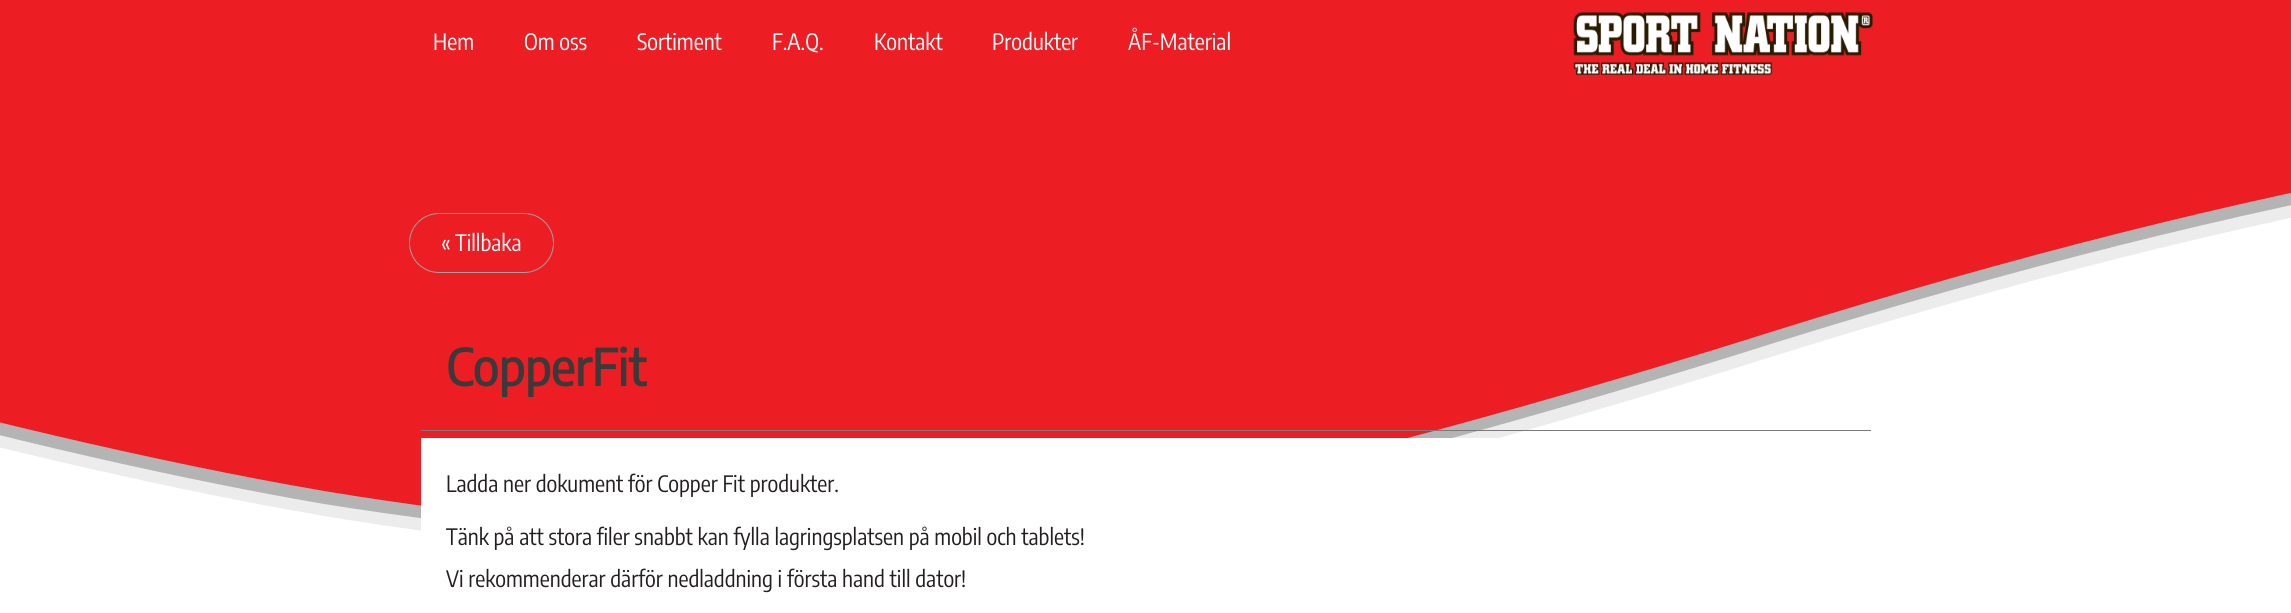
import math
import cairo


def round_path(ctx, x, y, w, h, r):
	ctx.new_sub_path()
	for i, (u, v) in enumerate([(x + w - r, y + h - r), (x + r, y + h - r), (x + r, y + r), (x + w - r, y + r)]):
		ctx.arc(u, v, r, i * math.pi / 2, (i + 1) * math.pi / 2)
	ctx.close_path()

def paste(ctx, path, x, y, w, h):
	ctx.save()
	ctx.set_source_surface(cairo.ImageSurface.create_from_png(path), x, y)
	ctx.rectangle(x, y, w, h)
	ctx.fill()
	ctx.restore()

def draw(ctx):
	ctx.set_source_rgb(1, 1, 1)
	ctx.paint()
	ctx.set_source_rgb(0.929, 0.114, 0.141)
	ctx.rectangle(0, 0, 2291, 60)
	ctx.fill()
	ctx.select_font_face('Encode Sans Condensed')
	ctx.set_font_size(22.5)
	ctx.set_source_rgb(1, 1, 1)
	for x, y, s in [
		(433, 50, 'Hem'),
		(524, 50, 'Om oss'),
		(637, 50, 'Sortiment'),
		(772, 50, 'F.A.Q.'),
		(874, 50, 'Kontakt'),
		(992, 50, 'Produkter'),
		(1128, 50, 'ÅF-Material'),
	]:
		ctx.move_to(x, y)
		ctx.show_text(s)
	ctx.set_source_rgb(0.925, 0.925, 0.925)
	ctx.new_path()
	ctx.move_to(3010, 118)
	ctx.curve_to(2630, 143, 2261, 204, 1774, 356)
	ctx.curve_to(1585, 416, 1281, 503, 1130, 526)
	ctx.curve_to(978, 549, 792, 563, 645, 551)
	ctx.curve_to(580, 546, 500, 545, 324, 516)
	ctx.curve_to(149, 486, -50, 437, -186, 399)
	ctx.curve_to(-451, 323, -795, 295, -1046, 291)
	ctx.curve_to(-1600, 284, -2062, 438, -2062, 438)
	ctx.line_to(-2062, 85)
	ctx.line_to(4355, 85)
	ctx.line_to(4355, 250)
	ctx.curve_to(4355, 250, 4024, 158, 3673, 128)
	ctx.curve_to(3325, 99, 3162, 108, 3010, 118)
	ctx.close_path()
	ctx.fill()
	ctx.set_source_rgb(0.706, 0.706, 0.706)
	ctx.new_path()
	ctx.move_to(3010, 106)
	ctx.curve_to(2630, 131, 2261, 191, 1774, 343)
	ctx.curve_to(1585, 403, 1281, 490, 1130, 514)
	ctx.curve_to(978, 537, 792, 551, 645, 539)
	ctx.curve_to(580, 533, 500, 532, 324, 504)
	ctx.curve_to(149, 474, -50, 425, -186, 386)
	ctx.curve_to(-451, 311, -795, 282, -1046, 279)
	ctx.curve_to(-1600, 271, -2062, 425, -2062, 425)
	ctx.line_to(-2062, 73)
	ctx.line_to(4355, 73)
	ctx.line_to(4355, 238)
	ctx.curve_to(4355, 238, 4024, 145, 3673, 115)
	ctx.curve_to(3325, 87, 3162, 96, 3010, 106)
	ctx.close_path()
	ctx.fill()
	ctx.set_source_rgb(0.929, 0.114, 0.141)
	ctx.new_path()
	ctx.move_to(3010, 93)
	ctx.curve_to(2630, 118, 2261, 179, 1774, 331)
	ctx.curve_to(1585, 391, 1281, 478, 1130, 501)
	ctx.curve_to(978, 524, 792, 538, 645, 526)
	ctx.curve_to(580, 521, 500, 520, 324, 491)
	ctx.curve_to(149, 461, -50, 412, -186, 374)
	ctx.curve_to(-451, 298, -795, 270, -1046, 266)
	ctx.curve_to(-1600, 259, -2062, 413, -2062, 413)
	ctx.line_to(-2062, 60)
	ctx.line_to(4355, 60)
	ctx.line_to(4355, 225)
	ctx.curve_to(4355, 225, 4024, 133, 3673, 103)
	ctx.curve_to(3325, 74, 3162, 83, 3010, 93)
	ctx.close_path()
	ctx.fill()
	paste(ctx, 'media/1.png', 1573, 12, 300, 63)
	round_path(ctx, 409.5, 213.5, 144, 59, 29.5)
	ctx.set_source_rgb(0.631, 0.631, 0.631)
	ctx.set_line_width(1)
	ctx.stroke()
	ctx.set_source_rgb(1, 1, 1)
	ctx.move_to(441, 251)
	ctx.show_text('« Tillbaka')
	ctx.select_font_face('Encode Sans Semi Condensed', cairo.FONT_SLANT_NORMAL, cairo.FONT_WEIGHT_BOLD)
	ctx.set_font_size(50)
	ctx.set_source_rgb(0.227, 0.227, 0.227)
	ctx.move_to(446, 386)
	ctx.show_text('CopperFit')
	ctx.set_source_rgb(0.478, 0.478, 0.478)
	ctx.rectangle(421, 430, 1450, 1)
	ctx.fill()
	ctx.set_source_rgb(1, 1, 1)
	ctx.rectangle(421, 438, 1077, 118)
	ctx.fill()
	ctx.select_font_face('Encode Sans Condensed')
	ctx.set_font_size(22.5)
	ctx.set_source_rgb(0.137, 0.122, 0.125)
	for x, y, s in [
		(446, 492, 'Ladda ner dokument för Copper Fit produkter.'),
		(446, 545, 'Tänk på att stora filer snabbt kan fylla lagringsplatsen på mobil och tablets!'),
		(446, 587, 'Vi rekommenderar därför nedladdning i första hand till dator!'),
	]:
		ctx.move_to(x, y)
		ctx.show_text(s)


surface = cairo.ImageSurface(cairo.FORMAT_RGB24, 2291, 613)
ctx = cairo.Context(surface)
options = cairo.FontOptions()
options.set_hint_metrics(cairo.HINT_METRICS_OFF)
options.set_hint_style(cairo.HINT_STYLE_NONE)
ctx.set_font_options(options)
ctx.set_miter_limit(4)
draw(ctx)
surface.write_to_png('image.png')
